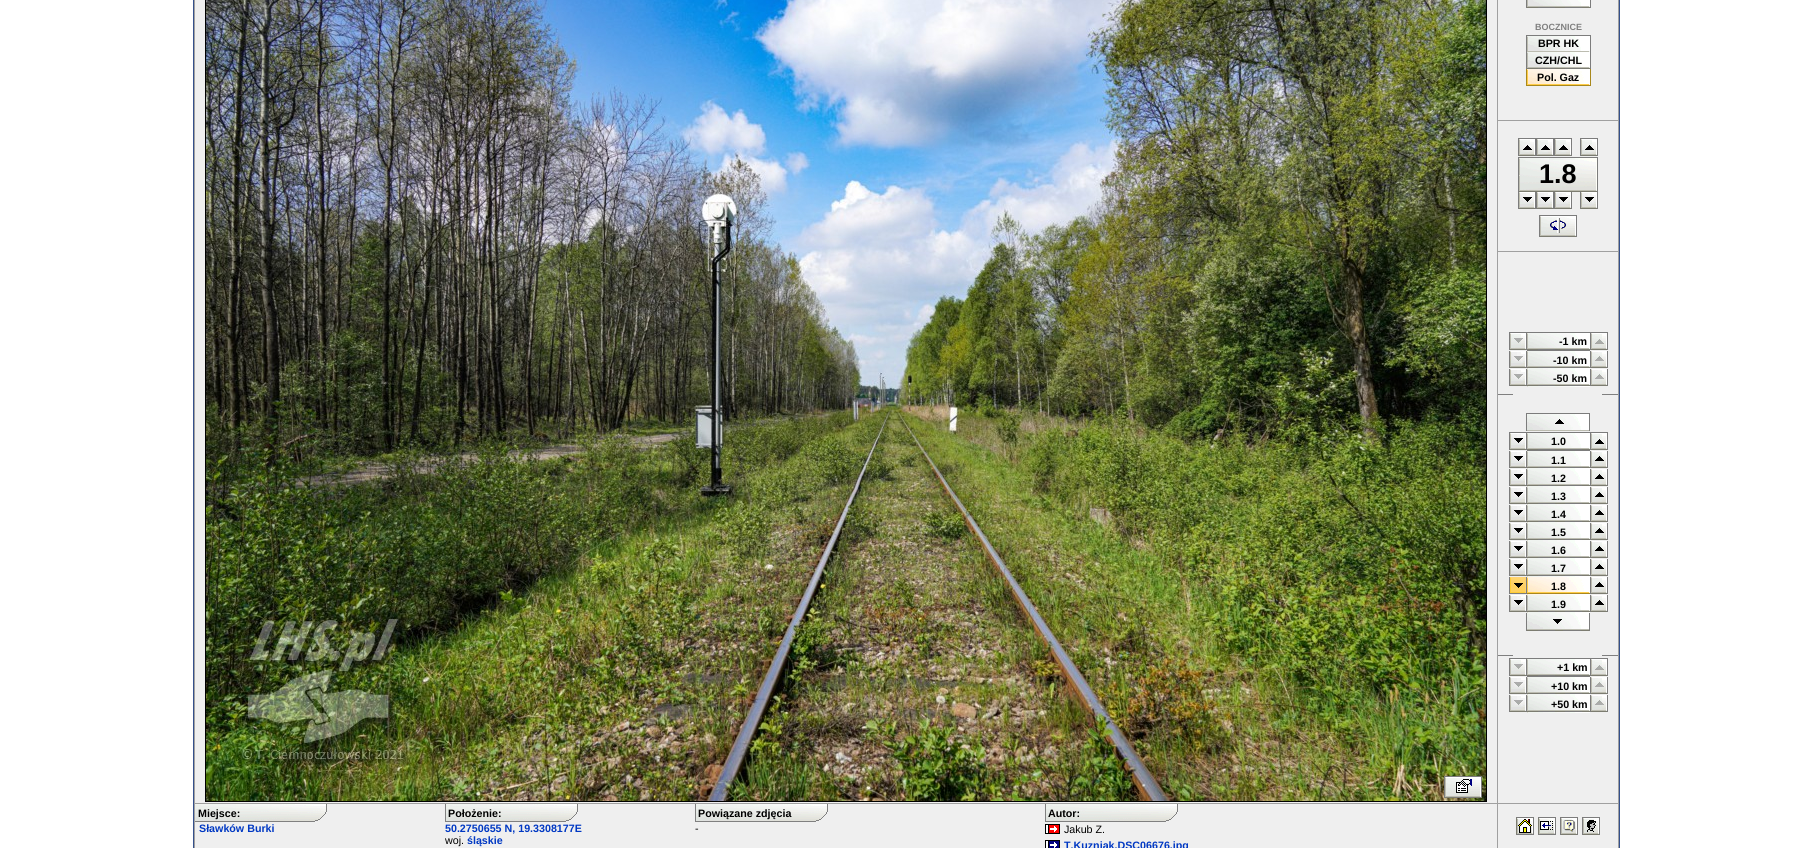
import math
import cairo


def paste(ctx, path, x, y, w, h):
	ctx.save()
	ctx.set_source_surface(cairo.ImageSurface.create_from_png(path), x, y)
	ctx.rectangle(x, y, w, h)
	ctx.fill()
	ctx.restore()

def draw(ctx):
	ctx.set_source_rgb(1, 1, 1)
	ctx.paint()
	ctx.set_source_rgb(0.204, 0.314, 0.549)
	ctx.rectangle(193, 0, 1427, 848)
	ctx.fill()
	ctx.set_source_rgb(0.627, 0.627, 0.627)
	ctx.rectangle(194, 0, 1425, 848)
	ctx.fill()
	ctx.set_source_rgb(0.937, 0.937, 0.937)
	ctx.rectangle(195, 0, 1302, 803)
	ctx.fill()
	ctx.rectangle(205.5, -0.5, 1281, 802)
	ctx.set_source_rgb(0, 0, 0)
	ctx.set_line_width(1)
	ctx.stroke()
	paste(ctx, 'media/1.png', 206, 0, 1280, 801)
	ctx.set_source_rgb(0.937, 0.937, 0.937)
	ctx.rectangle(1498, 0, 120, 120)
	ctx.fill()
	paste(ctx, 'media/2.png', 1526, 0, 65, 8)
	ctx.select_font_face('Liberation Sans', cairo.FONT_SLANT_NORMAL, cairo.FONT_WEIGHT_BOLD)
	ctx.set_font_size(9)
	ctx.set_source_rgb(0.502, 0.502, 0.502)
	ctx.move_to(1535, 30)
	ctx.show_text('BOCZNICE')
	paste(ctx, 'media/3.png', 1526, 35, 65, 17)
	ctx.set_font_size(10.7)
	ctx.set_source_rgb(0, 0, 0)
	ctx.move_to(1538, 47)
	ctx.show_text('BPR HK')
	paste(ctx, 'media/4.png', 1526, 52, 65, 17)
	ctx.move_to(1535, 64)
	ctx.show_text('CZH/CHL')
	paste(ctx, 'media/5.png', 1526, 69, 65, 17)
	ctx.move_to(1537, 81)
	ctx.show_text('Pol. Gaz')
	ctx.set_source_rgb(0.937, 0.937, 0.937)
	ctx.rectangle(1498, 121, 120, 130)
	ctx.fill()
	paste(ctx, 'media/6.png', 1518, 138, 18, 18)
	paste(ctx, 'media/6.png', 1536, 138, 18, 18)
	paste(ctx, 'media/6.png', 1554, 138, 18, 18)
	paste(ctx, 'media/6.png', 1580, 138, 18, 18)
	paste(ctx, 'media/7.png', 1518, 157, 80, 35)
	ctx.set_font_size(27)
	ctx.set_source_rgb(0, 0, 0)
	ctx.move_to(1539, 183)
	ctx.show_text('1.8')
	paste(ctx, 'media/8.png', 1518, 192, 18, 17)
	paste(ctx, 'media/8.png', 1536, 192, 18, 17)
	paste(ctx, 'media/8.png', 1554, 192, 18, 17)
	paste(ctx, 'media/8.png', 1580, 192, 18, 17)
	paste(ctx, 'media/9.png', 1539, 215, 38, 22)
	ctx.set_source_rgb(0.937, 0.937, 0.937)
	ctx.rectangle(1498, 252, 120, 551)
	ctx.fill()
	paste(ctx, 'media/10.png', 1509, 332, 18, 18)
	paste(ctx, 'media/11.png', 1527, 332, 63, 19)
	ctx.set_font_size(10.7)
	ctx.set_source_rgb(0, 0, 0)
	ctx.move_to(1559, 345)
	ctx.show_text('-1 km')
	paste(ctx, 'media/12.png', 1590, 332, 18, 18)
	paste(ctx, 'media/13.png', 1509, 351, 18, 17)
	paste(ctx, 'media/14.png', 1527, 351, 63, 18)
	ctx.move_to(1553, 364)
	ctx.show_text('-10 km')
	paste(ctx, 'media/15.png', 1590, 351, 18, 17)
	paste(ctx, 'media/13.png', 1509, 369, 18, 17)
	paste(ctx, 'media/14.png', 1527, 369, 63, 18)
	ctx.move_to(1553, 382)
	ctx.show_text('-50 km')
	paste(ctx, 'media/15.png', 1590, 369, 18, 17)
	paste(ctx, 'media/16.png', 1498, 394, 120, 1)
	paste(ctx, 'media/17.png', 1526, 413, 64, 18)
	paste(ctx, 'media/18.png', 1509, 432, 18, 18)
	paste(ctx, 'media/11.png', 1527, 432, 63, 19)
	ctx.move_to(1551, 445)
	ctx.show_text('1.0')
	paste(ctx, 'media/6.png', 1590, 432, 18, 18)
	paste(ctx, 'media/8.png', 1509, 451, 18, 17)
	paste(ctx, 'media/14.png', 1527, 451, 63, 18)
	ctx.move_to(1551, 464)
	ctx.show_text('1.1')
	paste(ctx, 'media/19.png', 1590, 451, 18, 17)
	paste(ctx, 'media/8.png', 1509, 469, 18, 17)
	paste(ctx, 'media/14.png', 1527, 469, 63, 18)
	ctx.move_to(1551, 482)
	ctx.show_text('1.2')
	paste(ctx, 'media/19.png', 1590, 469, 18, 17)
	paste(ctx, 'media/8.png', 1509, 487, 18, 17)
	paste(ctx, 'media/14.png', 1527, 487, 63, 18)
	ctx.move_to(1551, 500)
	ctx.show_text('1.3')
	paste(ctx, 'media/19.png', 1590, 487, 18, 17)
	paste(ctx, 'media/8.png', 1509, 505, 18, 17)
	paste(ctx, 'media/14.png', 1527, 505, 63, 18)
	ctx.move_to(1551, 518)
	ctx.show_text('1.4')
	paste(ctx, 'media/19.png', 1590, 505, 18, 17)
	paste(ctx, 'media/8.png', 1509, 523, 18, 17)
	paste(ctx, 'media/14.png', 1527, 523, 63, 18)
	ctx.move_to(1551, 536)
	ctx.show_text('1.5')
	paste(ctx, 'media/19.png', 1590, 523, 18, 17)
	paste(ctx, 'media/8.png', 1509, 541, 18, 17)
	paste(ctx, 'media/14.png', 1527, 541, 63, 18)
	ctx.move_to(1551, 554)
	ctx.show_text('1.6')
	paste(ctx, 'media/19.png', 1590, 541, 18, 17)
	paste(ctx, 'media/8.png', 1509, 559, 18, 17)
	paste(ctx, 'media/14.png', 1527, 559, 63, 18)
	ctx.move_to(1551, 572)
	ctx.show_text('1.7')
	paste(ctx, 'media/19.png', 1590, 559, 18, 17)
	paste(ctx, 'media/20.png', 1509, 577, 18, 17)
	paste(ctx, 'media/21.png', 1527, 577, 63, 18)
	ctx.move_to(1551, 590)
	ctx.show_text('1.8')
	paste(ctx, 'media/19.png', 1590, 577, 18, 17)
	paste(ctx, 'media/8.png', 1509, 595, 18, 17)
	paste(ctx, 'media/14.png', 1527, 595, 63, 18)
	ctx.move_to(1551, 608)
	ctx.show_text('1.9')
	paste(ctx, 'media/19.png', 1590, 595, 18, 17)
	paste(ctx, 'media/22.png', 1526, 613, 64, 18)
	paste(ctx, 'media/16.png', 1498, 655, 120, 1)
	paste(ctx, 'media/10.png', 1509, 658, 18, 18)
	paste(ctx, 'media/11.png', 1527, 658, 63, 19)
	ctx.move_to(1557, 671)
	ctx.show_text('+1 km')
	paste(ctx, 'media/12.png', 1590, 658, 18, 18)
	paste(ctx, 'media/13.png', 1509, 677, 18, 17)
	paste(ctx, 'media/14.png', 1527, 677, 63, 18)
	ctx.move_to(1551, 690)
	ctx.show_text('+10 km')
	paste(ctx, 'media/15.png', 1590, 677, 18, 17)
	paste(ctx, 'media/13.png', 1509, 695, 18, 17)
	paste(ctx, 'media/14.png', 1527, 695, 63, 18)
	ctx.move_to(1551, 708)
	ctx.show_text('+50 km')
	paste(ctx, 'media/15.png', 1590, 695, 18, 17)
	ctx.set_source_rgb(0.937, 0.937, 0.937)
	ctx.rectangle(195, 804, 1302, 44)
	ctx.fill()
	paste(ctx, 'media/23.png', 195, 804, 132, 18)
	ctx.set_source_rgb(0, 0, 0)
	ctx.move_to(198, 817)
	ctx.show_text('Miejsce:')
	paste(ctx, 'media/24.png', 445, 804, 133, 18)
	ctx.move_to(448, 817)
	ctx.show_text('Położenie:')
	paste(ctx, 'media/24.png', 695, 804, 133, 18)
	ctx.move_to(698, 817)
	ctx.show_text('Powiązane zdjęcia')
	paste(ctx, 'media/24.png', 1045, 804, 133, 18)
	ctx.move_to(1048, 817)
	ctx.show_text('Autor:')
	paste(ctx, 'media/25.png', 1444, 776, 38, 22)
	ctx.set_source_rgb(0, 0.22, 0.765)
	ctx.move_to(199, 832)
	ctx.show_text('Sławków Burki')
	ctx.move_to(445, 832)
	ctx.show_text('50.2750655 N, 19.3308177E')
	ctx.select_font_face('Liberation Sans')
	ctx.set_source_rgb(0, 0, 0)
	ctx.move_to(445, 844)
	ctx.show_text('woj.')
	ctx.select_font_face('Liberation Sans', cairo.FONT_SLANT_NORMAL, cairo.FONT_WEIGHT_BOLD)
	ctx.set_source_rgb(0, 0.22, 0.765)
	ctx.move_to(467, 844)
	ctx.show_text('śląskie')
	ctx.select_font_face('Liberation Sans')
	ctx.set_source_rgb(0, 0, 0)
	ctx.move_to(695, 832)
	ctx.show_text('-')
	paste(ctx, 'media/26.png', 1045, 824, 15, 10)
	ctx.move_to(1064, 833)
	ctx.show_text('Jakub Z.')
	paste(ctx, 'media/27.png', 1045, 840, 15, 8)
	ctx.select_font_face('Liberation Sans', cairo.FONT_SLANT_NORMAL, cairo.FONT_WEIGHT_BOLD)
	ctx.set_source_rgb(0, 0.22, 0.765)
	ctx.move_to(1064, 849)
	ctx.show_text('T.Kuzniak.DSC06676.jpg')
	ctx.set_source_rgb(0.937, 0.937, 0.937)
	ctx.rectangle(1498, 804, 120, 44)
	ctx.fill()
	paste(ctx, 'media/28.png', 1516, 817, 18, 18)
	paste(ctx, 'media/29.png', 1538, 817, 18, 18)
	paste(ctx, 'media/30.png', 1560, 817, 18, 18)
	paste(ctx, 'media/31.png', 1582, 817, 18, 18)


surface = cairo.ImageSurface(cairo.FORMAT_RGB24, 1813, 848)
ctx = cairo.Context(surface)
options = cairo.FontOptions()
options.set_hint_metrics(cairo.HINT_METRICS_OFF)
options.set_hint_style(cairo.HINT_STYLE_NONE)
ctx.set_font_options(options)
ctx.set_miter_limit(4)
draw(ctx)
surface.write_to_png('image.png')
